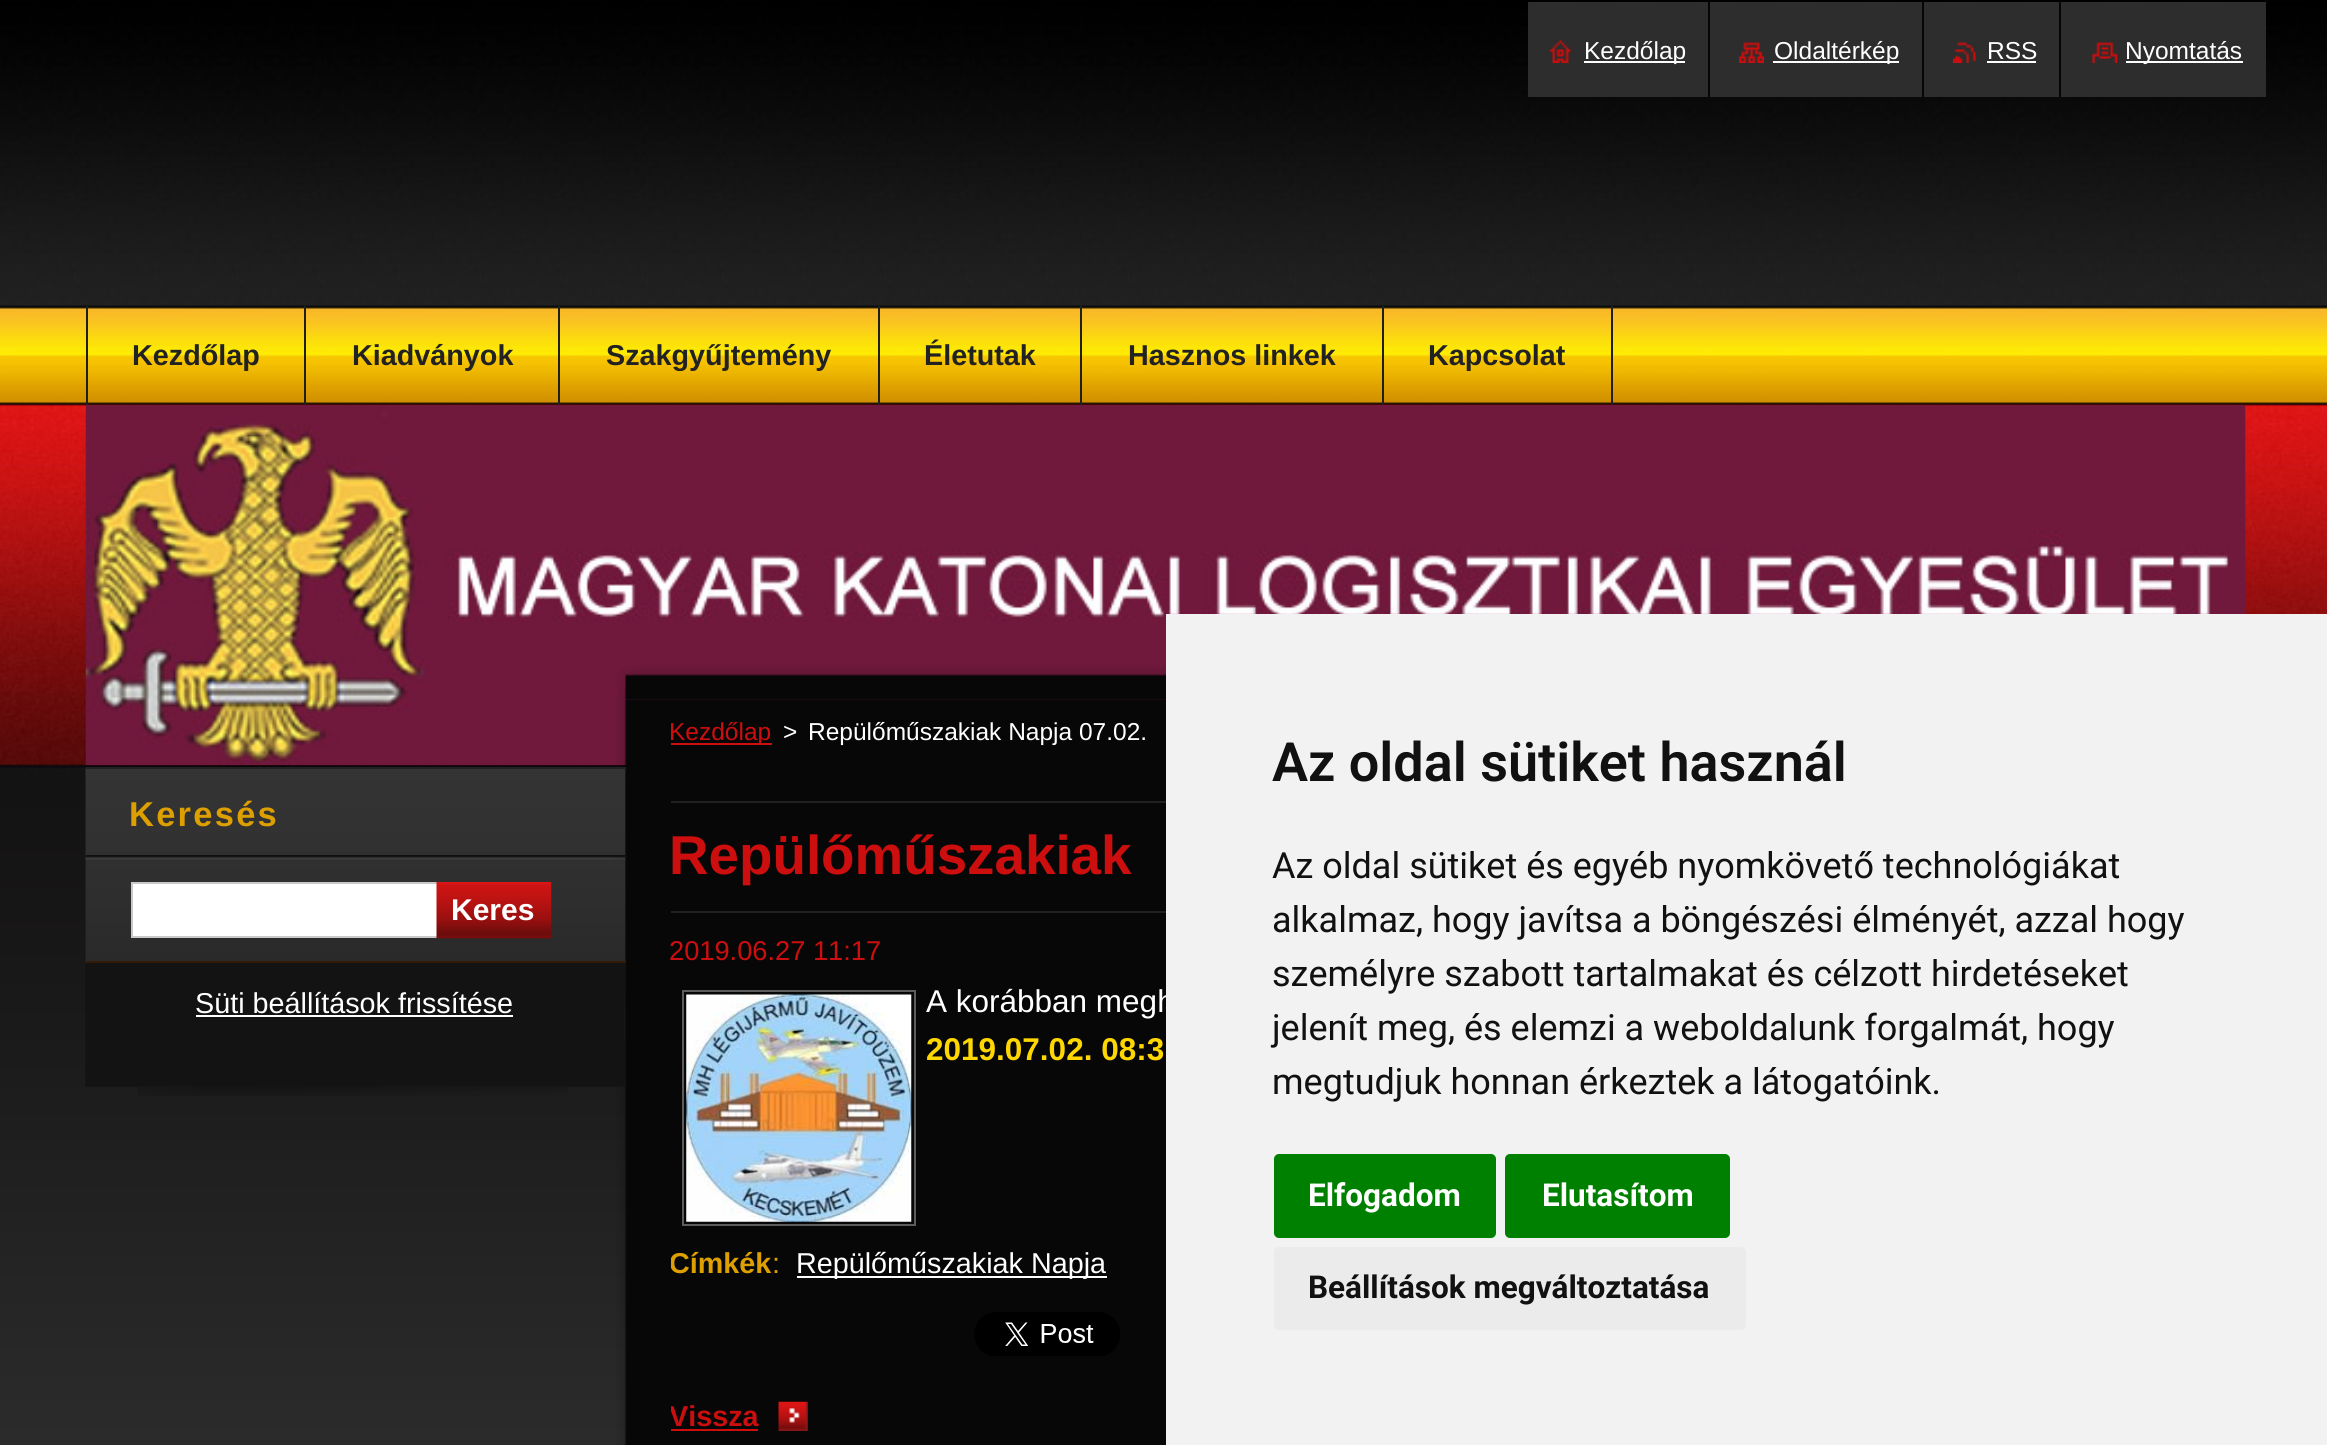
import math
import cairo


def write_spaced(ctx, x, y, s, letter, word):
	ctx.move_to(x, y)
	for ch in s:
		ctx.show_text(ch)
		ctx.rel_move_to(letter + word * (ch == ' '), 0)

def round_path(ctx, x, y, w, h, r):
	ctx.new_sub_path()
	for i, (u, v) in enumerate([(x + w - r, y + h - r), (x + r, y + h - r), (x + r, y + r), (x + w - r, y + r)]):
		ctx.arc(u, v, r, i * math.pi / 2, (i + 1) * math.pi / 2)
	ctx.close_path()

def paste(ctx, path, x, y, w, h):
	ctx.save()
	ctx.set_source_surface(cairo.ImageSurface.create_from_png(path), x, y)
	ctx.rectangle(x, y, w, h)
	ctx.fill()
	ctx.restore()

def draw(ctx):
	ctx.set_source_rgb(1, 1, 1)
	ctx.paint()
	paste(ctx, 'media/1.png', 0, 0, 2327, 1445)
	ctx.set_source_rgb(0.176, 0.176, 0.176)
	ctx.rectangle(1528, 2, 738, 95)
	ctx.fill()
	paste(ctx, 'media/2.png', 1550, 40, 21, 23)
	ctx.set_source_rgb(1, 1, 1)
	ctx.rectangle(1584, 61, 101, 2)
	ctx.fill()
	ctx.select_font_face('Liberation Sans')
	ctx.set_font_size(24.5)
	ctx.move_to(1584, 59)
	ctx.show_text('Kezdőlap')
	ctx.set_source_rgb(0.027, 0.027, 0.027)
	ctx.rectangle(1708, 2, 2, 95)
	ctx.fill()
	paste(ctx, 'media/3.png', 1739, 42, 25, 21)
	ctx.set_source_rgb(1, 1, 1)
	ctx.rectangle(1773, 61, 126, 2)
	ctx.fill()
	ctx.move_to(1774, 59)
	ctx.show_text('Oldaltérkép')
	ctx.set_source_rgb(0.027, 0.027, 0.027)
	ctx.rectangle(1922, 2, 2, 95)
	ctx.fill()
	paste(ctx, 'media/4.png', 1953, 42, 23, 21)
	ctx.set_source_rgb(1, 1, 1)
	ctx.move_to(1987, 59)
	ctx.show_text('RSS')
	ctx.set_source_rgb(0.027, 0.027, 0.027)
	ctx.rectangle(2059, 2, 2, 95)
	ctx.fill()
	ctx.set_source_rgb(1, 1, 1)
	ctx.rectangle(1987, 61, 49, 2)
	ctx.fill()
	paste(ctx, 'media/5.png', 2092, 42, 26, 21)
	ctx.rectangle(2126, 61, 117, 2)
	ctx.fill()
	ctx.move_to(2125, 59)
	ctx.show_text('Nyomtatás')
	ctx.set_source_rgb(0.122, 0.122, 0.122)
	ctx.rectangle(304, 306, 2, 99)
	ctx.fill()
	ctx.rectangle(86, 306, 2, 99)
	ctx.fill()
	ctx.select_font_face('Liberation Sans', cairo.FONT_SLANT_NORMAL, cairo.FONT_WEIGHT_BOLD)
	ctx.set_font_size(28.75)
	ctx.set_source_rgb(0.133, 0.133, 0.133)
	ctx.move_to(132, 365)
	ctx.show_text('Kezdőlap')
	ctx.set_source_rgb(0.122, 0.122, 0.122)
	ctx.rectangle(558, 306, 2, 99)
	ctx.fill()
	ctx.set_source_rgb(0.133, 0.133, 0.133)
	ctx.move_to(352, 365)
	ctx.show_text('Kiadványok')
	ctx.set_source_rgb(0.122, 0.122, 0.122)
	ctx.rectangle(878, 306, 2, 99)
	ctx.fill()
	ctx.set_source_rgb(0.133, 0.133, 0.133)
	ctx.move_to(606, 365)
	ctx.show_text('Szakgyűjtemény')
	ctx.set_source_rgb(0.122, 0.122, 0.122)
	ctx.rectangle(1080, 306, 2, 99)
	ctx.fill()
	ctx.set_source_rgb(0.133, 0.133, 0.133)
	ctx.move_to(924, 365)
	ctx.show_text('Életutak')
	ctx.set_source_rgb(0.122, 0.122, 0.122)
	ctx.rectangle(1382, 306, 2, 99)
	ctx.fill()
	ctx.set_source_rgb(0.133, 0.133, 0.133)
	ctx.move_to(1128, 365)
	ctx.show_text('Hasznos linkek')
	ctx.set_source_rgb(0.122, 0.122, 0.122)
	ctx.rectangle(1611, 306, 2, 99)
	ctx.fill()
	ctx.set_source_rgb(0.133, 0.133, 0.133)
	ctx.move_to(1428, 365)
	ctx.show_text('Kapcsolat')
	paste(ctx, 'media/6.png', 85, 405, 2161, 360)
	paste(ctx, 'media/7.png', 617, 666, 549, 34)
	paste(ctx, 'media/8.png', 616, 699, 550, 746)
	paste(ctx, 'media/9.png', 138, 1087, 430, 9)
	paste(ctx, 'media/10.png', 85, 768, 1, 195)
	paste(ctx, 'media/11.png', 85, 767, 541, 196)
	ctx.set_source_rgb(0.2, 0.106, 0.031)
	ctx.rectangle(86, 961, 540, 2)
	ctx.fill()
	paste(ctx, 'media/12.png', 85, 855, 541, 5)
	ctx.set_source_rgb(0.129, 0.129, 0.129)
	ctx.rectangle(86, 767, 540, 2)
	ctx.fill()
	ctx.set_font_size(34.5)
	ctx.set_source_rgb(0.867, 0.627, 0)
	write_spaced(ctx, 129, 826, 'Keresés', 2.25, 0)
	ctx.set_source_rgb(1, 1, 1)
	ctx.rectangle(132, 883, 306, 54)
	ctx.fill_preserve()
	ctx.set_source_rgb(0.788, 0.788, 0.788)
	ctx.stroke()
	paste(ctx, 'media/13.png', 436, 882, 116, 57)
	ctx.set_font_size(30)
	ctx.set_source_rgb(1, 1, 1)
	ctx.move_to(451, 920)
	ctx.show_text('Keres')
	paste(ctx, 'media/14.png', 85, 963, 539, 79)
	ctx.select_font_face('Liberation Sans')
	ctx.set_font_size(28.75)
	ctx.move_to(195, 1013)
	ctx.show_text('Süti beállítások frissítése')
	ctx.rectangle(196, 1015, 317, 2)
	ctx.fill()
	paste(ctx, 'media/15.png', 85, 1042, 540, 45)
	ctx.set_source_rgb(0.8, 0.055, 0.055)
	ctx.rectangle(671, 743, 101, 2)
	ctx.fill()
	ctx.set_font_size(24.5)
	ctx.move_to(669, 740)
	ctx.show_text('Kezdőlap')
	ctx.set_source_rgb(1, 1, 1)
	ctx.move_to(783, 740)
	ctx.show_text('>')
	ctx.move_to(808, 740)
	ctx.show_text('Repülőműszakiak Napja 07.02.')
	ctx.set_source_rgb(0.129, 0.129, 0.129)
	ctx.rectangle(671, 801, 495, 2)
	ctx.fill()
	ctx.rectangle(671, 911, 495, 2)
	ctx.fill()
	ctx.select_font_face('Liberation Sans', cairo.FONT_SLANT_NORMAL, cairo.FONT_WEIGHT_BOLD)
	ctx.set_font_size(54.75)
	ctx.set_source_rgb(0.8, 0.055, 0.055)
	ctx.move_to(669, 874)
	ctx.show_text('Repülőműszakiak')
	ctx.select_font_face('Liberation Sans')
	ctx.set_font_size(27.25)
	ctx.move_to(669, 960)
	ctx.show_text('2019.06.27 11:17')
	ctx.rectangle(683, 991, 232, 234)
	ctx.set_source_rgb(0.361, 0.361, 0.361)
	ctx.stroke()
	paste(ctx, 'media/16.png', 686, 994, 226, 228)
	ctx.set_font_size(31.5)
	ctx.set_source_rgb(1, 1, 1)
	ctx.move_to(926, 1012)
	ctx.show_text('A korábban megh')
	ctx.select_font_face('Liberation Sans', cairo.FONT_SLANT_NORMAL, cairo.FONT_WEIGHT_BOLD)
	ctx.set_source_rgb(1, 0.843, 0)
	ctx.move_to(926, 1060)
	ctx.show_text('2019.07.02. 08:3')
	ctx.save()
	ctx.rectangle(671, 936, 1530, 497)
	ctx.clip()
	ctx.set_font_size(28.75)
	ctx.set_source_rgb(0.867, 0.627, 0)
	ctx.move_to(669, 1273)
	ctx.show_text('Címkék')
	ctx.restore()
	ctx.select_font_face('Liberation Sans')
	ctx.set_font_size(28.75)
	ctx.set_source_rgb(0.867, 0.627, 0)
	ctx.move_to(772, 1273)
	ctx.show_text(':')
	ctx.set_source_rgb(1, 1, 1)
	ctx.rectangle(797, 1276, 310, 2)
	ctx.fill()
	ctx.move_to(796, 1273)
	ctx.show_text('Repülőműszakiak Napja')
	paste(ctx, 'media/17.png', 974, 1312, 146, 44)
	paste(ctx, 'media/18.png', 778, 1401, 30, 30)
	ctx.save()
	ctx.rectangle(671, 936, 1530, 497)
	ctx.clip()
	ctx.select_font_face('Liberation Sans', cairo.FONT_SLANT_NORMAL, cairo.FONT_WEIGHT_BOLD)
	ctx.set_source_rgb(0.8, 0.055, 0.055)
	ctx.move_to(669, 1426)
	ctx.show_text('Vissza')
	ctx.restore()
	ctx.set_source_rgb(0.8, 0.055, 0.055)
	ctx.rectangle(671, 1429, 87, 2)
	ctx.fill()
	ctx.set_source_rgb(0.949, 0.949, 0.949)
	ctx.rectangle(1166, 614, 1161, 831)
	ctx.fill()
	ctx.select_font_face('Roboto SemiBold')
	ctx.set_font_size(54)
	ctx.set_source_rgb(0.067, 0.067, 0.067)
	ctx.move_to(1272, 781)
	ctx.show_text('Az oldal sütiket használ')
	ctx.select_font_face('Roboto')
	ctx.set_font_size(36)
	for x, y, s in [
		(1272, 878, 'Az oldal sütiket és egyéb nyomkövető technológiákat'),
		(1272, 932, 'alkalmaz, hogy javítsa a böngészési élményét, azzal hogy'),
		(1272, 986, 'személyre szabott tartalmakat és célzott hirdetéseket'),
		(1272, 1040, 'jelenít meg, és elemzi a weboldalunk forgalmát, hogy'),
		(1272, 1094, 'megtudjuk honnan érkeztek a látogatóink.'),
	]:
		ctx.move_to(x, y)
		ctx.show_text(s)
	ctx.set_source_rgb(0, 0.502, 0)
	round_path(ctx, 1274, 1154, 222, 84, 5)
	ctx.fill()
	ctx.select_font_face('Roboto', cairo.FONT_SLANT_NORMAL, cairo.FONT_WEIGHT_BOLD)
	ctx.set_font_size(31.5)
	ctx.set_source_rgb(1, 1, 1)
	ctx.move_to(1308, 1206)
	ctx.show_text('Elfogadom')
	ctx.set_source_rgb(0, 0.502, 0)
	round_path(ctx, 1505, 1154, 225, 84, 5)
	ctx.fill()
	ctx.set_source_rgb(1, 1, 1)
	ctx.move_to(1542, 1206)
	ctx.show_text('Elutasítom')
	ctx.set_source_rgb(0.918, 0.918, 0.918)
	round_path(ctx, 1274, 1247, 472, 83, 5)
	ctx.fill()
	ctx.set_source_rgb(0.067, 0.067, 0.067)
	ctx.move_to(1308, 1298)
	ctx.show_text('Beállítások megváltoztatása')


surface = cairo.ImageSurface(cairo.FORMAT_RGB24, 2327, 1445)
ctx = cairo.Context(surface)
options = cairo.FontOptions()
options.set_hint_metrics(cairo.HINT_METRICS_OFF)
options.set_hint_style(cairo.HINT_STYLE_NONE)
ctx.set_font_options(options)
ctx.set_miter_limit(4)
draw(ctx)
surface.write_to_png('image.png')
